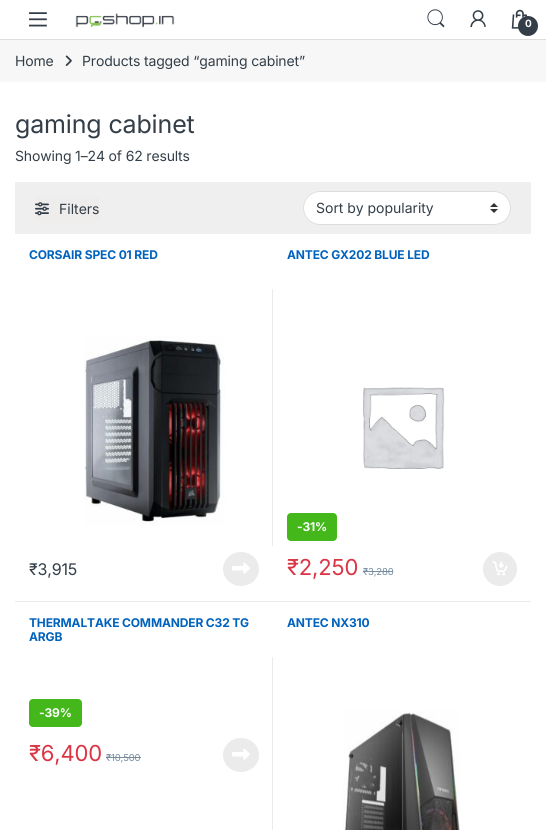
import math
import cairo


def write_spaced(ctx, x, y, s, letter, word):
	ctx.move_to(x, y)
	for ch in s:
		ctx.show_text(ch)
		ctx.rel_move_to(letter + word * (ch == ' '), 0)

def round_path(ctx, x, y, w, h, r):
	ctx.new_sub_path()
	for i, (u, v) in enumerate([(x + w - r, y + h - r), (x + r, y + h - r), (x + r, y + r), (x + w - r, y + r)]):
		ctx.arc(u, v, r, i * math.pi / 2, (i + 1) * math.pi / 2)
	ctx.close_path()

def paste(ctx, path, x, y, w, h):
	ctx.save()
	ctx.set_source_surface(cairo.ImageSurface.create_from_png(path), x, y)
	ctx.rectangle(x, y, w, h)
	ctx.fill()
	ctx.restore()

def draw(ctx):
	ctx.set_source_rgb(1, 1, 1)
	ctx.paint()
	ctx.set_source_rgb(0.867, 0.867, 0.867)
	ctx.rectangle(0, 39, 546, 1)
	ctx.fill()
	paste(ctx, 'media/1.png', 29, 12, 18, 15)
	paste(ctx, 'media/2.png', 75, 13, 100, 15)
	paste(ctx, 'media/3.png', 427, 9, 18, 19)
	paste(ctx, 'media/4.png', 470, 10, 16, 18)
	paste(ctx, 'media/5.png', 511, 9, 17, 20)
	ctx.set_source_rgb(0.2, 0.243, 0.282)
	ctx.arc(528, 26, 10, 0, 2 * math.pi)
	ctx.fill()
	ctx.select_font_face('Inter', cairo.FONT_SLANT_NORMAL, cairo.FONT_WEIGHT_BOLD)
	ctx.set_font_size(10)
	ctx.set_source_rgb(1, 1, 1)
	write_spaced(ctx, 525, 27, '0', -0.15, 0)
	ctx.set_source_rgb(0.969, 0.965, 0.965)
	ctx.rectangle(0, 40, 546, 42)
	ctx.fill()
	ctx.select_font_face('Inter')
	ctx.set_font_size(14)
	ctx.set_source_rgb(0.2, 0.243, 0.282)
	write_spaced(ctx, 15, 66, 'Home', -0.15, 0)
	paste(ctx, 'media/6.png', 65, 55, 7, 11)
	write_spaced(ctx, 82, 66, 'Products tagged “gaming cabinet”', -0.15, 0)
	ctx.set_font_size(25)
	write_spaced(ctx, 15, 133, 'gaming cabinet', -0.15, 0)
	ctx.set_font_size(14)
	write_spaced(ctx, 15, 161, 'Showing 1–24 of 62 results', -0.15, 0)
	ctx.set_source_rgb(0.937, 0.937, 0.937)
	ctx.rectangle(15, 182, 516, 52)
	ctx.fill()
	ctx.set_source_rgb(0.937, 0.925, 0.925)
	ctx.rectangle(35, 197, 64, 24)
	ctx.fill()
	paste(ctx, 'media/7.png', 35, 202, 14, 14)
	ctx.set_source_rgb(0.2, 0.243, 0.282)
	ctx.move_to(59, 214)
	ctx.show_text('Filters')
	ctx.set_source_rgb(1, 1, 1)
	round_path(ctx, 303, 191, 208, 34, 17)
	ctx.fill()
	paste(ctx, 'media/8.png', 490, 203, 8, 10)
	round_path(ctx, 303.5, 191.5, 207, 33, 16.5)
	ctx.set_source_rgb(0.867, 0.867, 0.867)
	ctx.set_line_width(1)
	ctx.stroke()
	ctx.set_source_rgb(0.2, 0.243, 0.282)
	ctx.move_to(316, 213)
	ctx.show_text('Sort by popularity')
	ctx.set_source_rgb(0.918, 0.918, 0.918)
	ctx.rectangle(15, 601, 516, 1)
	ctx.fill()
	ctx.select_font_face('Inter', cairo.FONT_SLANT_NORMAL, cairo.FONT_WEIGHT_BOLD)
	ctx.set_font_size(12)
	ctx.set_source_rgb(0, 0.384, 0.741)
	write_spaced(ctx, 29, 259, 'CORSAIR SPEC 01 RED', -0.15, 0)
	paste(ctx, 'media/9.png', 84, 336, 141, 190)
	ctx.select_font_face('Inter')
	ctx.set_font_size(16)
	ctx.set_source_rgb(0.2, 0.243, 0.282)
	write_spaced(ctx, 29, 575, '₹3,915', -0.15, 0)
	ctx.set_source_rgb(0.918, 0.918, 0.918)
	ctx.new_path()
	ctx.move_to(241, 552)
	ctx.curve_to(251, 552, 259, 559.5, 259, 569)
	ctx.curve_to(259, 578.5, 251, 586, 241, 586)
	ctx.curve_to(231, 586, 223, 578.5, 223, 569)
	ctx.curve_to(223, 559.5, 231, 552, 241, 552)
	ctx.close_path()
	ctx.fill()
	paste(ctx, 'media/10.png', 232, 562, 18, 12)
	ctx.rectangle(272, 289, 1, 257)
	ctx.fill()
	ctx.select_font_face('Inter', cairo.FONT_SLANT_NORMAL, cairo.FONT_WEIGHT_BOLD)
	ctx.set_font_size(12)
	ctx.set_source_rgb(0, 0.384, 0.741)
	write_spaced(ctx, 287, 259, 'ANTEC GX202 BLUE LED', -0.15, 0)
	paste(ctx, 'media/11.png', 363, 387, 82, 82)
	ctx.set_source_rgb(0.267, 0.722, 0.106)
	round_path(ctx, 287, 513, 50, 28, 4)
	ctx.fill()
	ctx.set_source_rgb(1, 1, 1)
	write_spaced(ctx, 297, 531, '-31%', -0.15, 0)
	ctx.select_font_face('Inter')
	ctx.set_font_size(22)
	ctx.set_source_rgb(0.863, 0.208, 0.271)
	write_spaced(ctx, 287, 575, '₹2,250', -0.15, 0)
	ctx.set_font_size(9.5)
	ctx.set_source_rgb(0.463, 0.545, 0.62)
	write_spaced(ctx, 363, 575, '₹3,280', -0.15, 0)
	ctx.rectangle(363, 571, 30, 1)
	ctx.fill()
	ctx.set_source_rgb(0.918, 0.918, 0.918)
	ctx.arc(500, 569, 17, 0, 2 * math.pi)
	ctx.fill()
	paste(ctx, 'media/12.png', 492, 561, 16, 15)
	ctx.select_font_face('Inter', cairo.FONT_SLANT_NORMAL, cairo.FONT_WEIGHT_BOLD)
	ctx.set_font_size(12)
	ctx.set_source_rgb(0, 0.384, 0.741)
	write_spaced(ctx, 29, 627, 'THERMALTAKE COMMANDER C32 TG', -0.15, 0)
	write_spaced(ctx, 29, 641, 'ARGB', -0.15, 0)
	ctx.set_source_rgb(0.267, 0.722, 0.106)
	round_path(ctx, 29, 699, 53, 28, 4)
	ctx.fill()
	ctx.set_source_rgb(1, 1, 1)
	write_spaced(ctx, 39, 717, '-39%', -0.15, 0)
	ctx.select_font_face('Inter')
	ctx.set_font_size(22)
	ctx.set_source_rgb(0.863, 0.208, 0.271)
	write_spaced(ctx, 29, 761, '₹6,400', -0.15, 0)
	ctx.set_font_size(9.5)
	ctx.set_source_rgb(0.463, 0.545, 0.62)
	write_spaced(ctx, 106, 761, '₹10,500', -0.15, 0)
	ctx.rectangle(106, 757, 35, 1)
	ctx.fill()
	ctx.set_source_rgb(0.918, 0.918, 0.918)
	ctx.new_path()
	ctx.move_to(241, 738)
	ctx.curve_to(251, 738, 259, 745.5, 259, 755)
	ctx.curve_to(259, 764.5, 251, 772, 241, 772)
	ctx.curve_to(231, 772, 223, 764.5, 223, 755)
	ctx.curve_to(223, 745.5, 231, 738, 241, 738)
	ctx.close_path()
	ctx.fill()
	paste(ctx, 'media/10.png', 232, 748, 18, 12)
	ctx.rectangle(272, 657, 1, 173)
	ctx.fill()
	ctx.select_font_face('Inter', cairo.FONT_SLANT_NORMAL, cairo.FONT_WEIGHT_BOLD)
	ctx.set_font_size(12)
	ctx.set_source_rgb(0, 0.384, 0.741)
	write_spaced(ctx, 287, 627, 'ANTEC NX310', -0.15, 0)
	paste(ctx, 'media/13.png', 343, 710, 117, 120)


surface = cairo.ImageSurface(cairo.FORMAT_RGB24, 546, 830)
ctx = cairo.Context(surface)
options = cairo.FontOptions()
options.set_hint_metrics(cairo.HINT_METRICS_OFF)
options.set_hint_style(cairo.HINT_STYLE_NONE)
ctx.set_font_options(options)
ctx.set_miter_limit(4)
draw(ctx)
surface.write_to_png('image.png')
